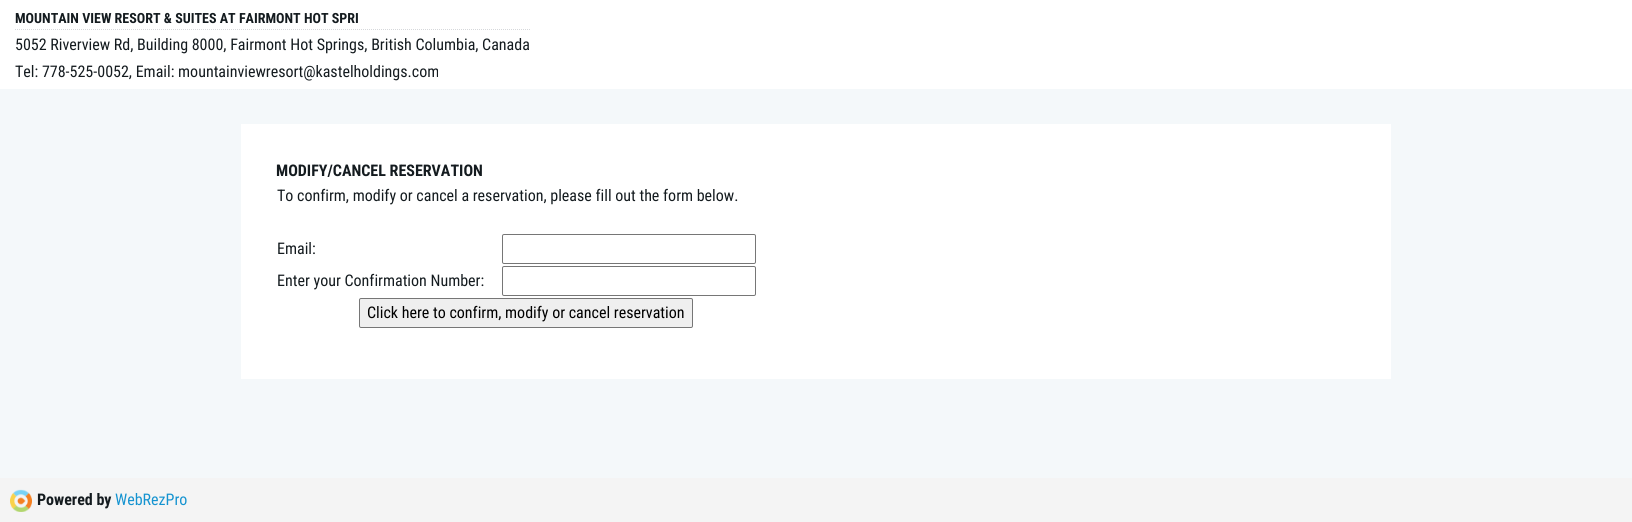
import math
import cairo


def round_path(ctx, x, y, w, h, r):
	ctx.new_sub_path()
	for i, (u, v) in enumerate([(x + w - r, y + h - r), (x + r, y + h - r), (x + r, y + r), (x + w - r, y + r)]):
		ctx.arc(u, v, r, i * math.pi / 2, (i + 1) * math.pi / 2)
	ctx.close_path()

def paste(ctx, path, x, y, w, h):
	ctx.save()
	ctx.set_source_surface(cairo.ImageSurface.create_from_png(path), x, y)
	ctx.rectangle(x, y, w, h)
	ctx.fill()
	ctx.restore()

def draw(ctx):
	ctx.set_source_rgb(0.957, 0.969, 0.98)
	ctx.paint()
	ctx.set_source_rgb(1, 1, 1)
	ctx.rectangle(0, 0, 1632, 89)
	ctx.fill()
	ctx.select_font_face('Roboto Condensed', cairo.FONT_SLANT_NORMAL, cairo.FONT_WEIGHT_BOLD)
	ctx.set_font_size(14)
	ctx.set_source_rgb(0.082, 0.106, 0.122)
	ctx.move_to(15, 23)
	ctx.show_text('MOUNTAIN VIEW RESORT & SUITES AT FAIRMONT HOT SPRI')
	ctx.new_path()
	ctx.move_to(15, 29.5)
	ctx.line_to(530, 29.5)
	ctx.set_source_rgb(0.839, 0.847, 0.859)
	ctx.set_line_width(1)
	ctx.set_dash([1, 1])
	ctx.stroke()
	ctx.select_font_face('Roboto Condensed')
	ctx.set_font_size(16)
	ctx.set_source_rgb(0.082, 0.106, 0.122)
	ctx.move_to(15, 50)
	ctx.show_text('5052 Riverview Rd, Building 8000, Fairmont Hot Springs, British Columbia, Canada')
	ctx.move_to(15, 77)
	ctx.show_text('Tel: 778-525-0052, Email: mountainviewresort@kastelholdings.com')
	ctx.set_source_rgb(1, 1, 1)
	ctx.rectangle(241, 124, 1150, 255)
	ctx.fill()
	ctx.select_font_face('Roboto Condensed', cairo.FONT_SLANT_NORMAL, cairo.FONT_WEIGHT_BOLD)
	ctx.set_source_rgb(0.082, 0.106, 0.122)
	ctx.move_to(276, 176)
	ctx.show_text('MODIFY/CANCEL RESERVATION')
	ctx.select_font_face('Roboto Condensed')
	ctx.move_to(277, 201)
	ctx.show_text('To confirm, modify or cancel a reservation, please fill out the form below.')
	ctx.move_to(277, 254)
	ctx.show_text('Email:')
	round_path(ctx, 502.5, 234.5, 253, 29, 1.5)
	ctx.set_source_rgb(0.463, 0.463, 0.463)
	ctx.set_dash([])
	ctx.stroke()
	ctx.set_source_rgb(0.082, 0.106, 0.122)
	ctx.move_to(277, 286)
	ctx.show_text('Enter your Confirmation Number:')
	round_path(ctx, 502.5, 266.5, 253, 29, 1.5)
	ctx.set_source_rgb(0.463, 0.463, 0.463)
	ctx.stroke()
	ctx.set_source_rgb(0.937, 0.937, 0.937)
	round_path(ctx, 359.5, 298.5, 333, 29, 1.5)
	ctx.fill_preserve()
	ctx.set_source_rgb(0.463, 0.463, 0.463)
	ctx.stroke()
	ctx.set_source_rgb(0, 0, 0)
	ctx.move_to(367, 318)
	ctx.show_text('Click here to confirm, modify or cancel reservation')
	ctx.set_source_rgb(0.957, 0.957, 0.957)
	ctx.rectangle(0, 478, 1632, 44)
	ctx.fill()
	paste(ctx, 'media/1.png', 10, 489, 22, 23)
	ctx.select_font_face('Roboto Condensed', cairo.FONT_SLANT_NORMAL, cairo.FONT_WEIGHT_BOLD)
	ctx.set_source_rgb(0.082, 0.106, 0.122)
	ctx.move_to(37, 505)
	ctx.show_text('Powered by')
	ctx.select_font_face('Roboto Condensed')
	ctx.set_source_rgb(0.082, 0.576, 0.816)
	ctx.move_to(115, 505)
	ctx.show_text('WebRezPro')


surface = cairo.ImageSurface(cairo.FORMAT_RGB24, 1632, 522)
ctx = cairo.Context(surface)
options = cairo.FontOptions()
options.set_hint_metrics(cairo.HINT_METRICS_OFF)
options.set_hint_style(cairo.HINT_STYLE_NONE)
ctx.set_font_options(options)
ctx.set_miter_limit(4)
draw(ctx)
surface.write_to_png('image.png')
